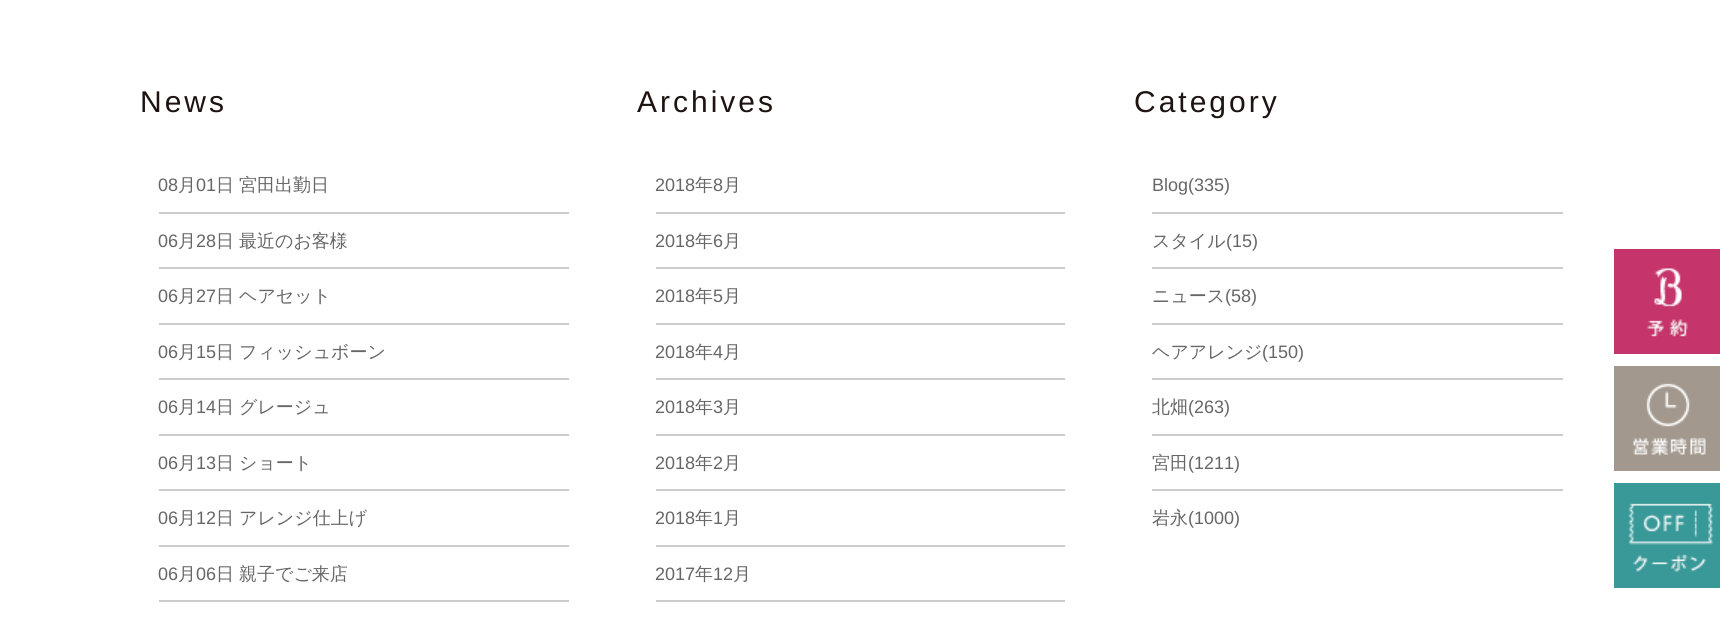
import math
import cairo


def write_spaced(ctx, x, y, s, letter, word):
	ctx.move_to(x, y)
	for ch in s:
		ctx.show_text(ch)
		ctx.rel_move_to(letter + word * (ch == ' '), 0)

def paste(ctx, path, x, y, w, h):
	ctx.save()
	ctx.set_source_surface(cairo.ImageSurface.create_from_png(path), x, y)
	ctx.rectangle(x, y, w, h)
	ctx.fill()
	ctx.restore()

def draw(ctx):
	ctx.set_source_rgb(1, 1, 1)
	ctx.paint()
	ctx.select_font_face('Liberation Sans')
	ctx.set_font_size(30)
	ctx.set_source_rgb(0.114, 0.078, 0.067)
	write_spaced(ctx, 140, 112, 'News', 3, 0)
	ctx.set_font_size(18)
	ctx.set_source_rgb(0.4, 0.4, 0.4)
	ctx.move_to(158, 191)
	ctx.show_text('08')
	ctx.select_font_face('WenQuanYi Zen Hei Medium')
	ctx.move_to(178, 191)
	ctx.show_text('月')
	ctx.select_font_face('Liberation Sans')
	ctx.move_to(196, 191)
	ctx.show_text('01')
	ctx.select_font_face('WenQuanYi Zen Hei Medium')
	ctx.move_to(216, 191)
	ctx.show_text('日')
	ctx.move_to(239, 191)
	ctx.show_text('宮田出勤日')
	ctx.set_source_rgb(0.8, 0.8, 0.8)
	ctx.rectangle(159, 212, 410, 2)
	ctx.fill()
	ctx.select_font_face('Liberation Sans')
	ctx.set_source_rgb(0.4, 0.4, 0.4)
	ctx.move_to(158, 247)
	ctx.show_text('06')
	ctx.select_font_face('WenQuanYi Zen Hei Medium')
	ctx.move_to(178, 247)
	ctx.show_text('月')
	ctx.select_font_face('Liberation Sans')
	ctx.move_to(196, 247)
	ctx.show_text('28')
	ctx.select_font_face('WenQuanYi Zen Hei Medium')
	ctx.move_to(216, 247)
	ctx.show_text('日')
	ctx.move_to(239, 247)
	ctx.show_text('最近のお客様')
	ctx.set_source_rgb(0.8, 0.8, 0.8)
	ctx.rectangle(159, 267, 410, 2)
	ctx.fill()
	ctx.select_font_face('Liberation Sans')
	ctx.set_source_rgb(0.4, 0.4, 0.4)
	ctx.move_to(158, 302)
	ctx.show_text('06')
	ctx.select_font_face('WenQuanYi Zen Hei Medium')
	ctx.move_to(178, 302)
	ctx.show_text('月')
	ctx.select_font_face('Liberation Sans')
	ctx.move_to(196, 302)
	ctx.show_text('27')
	ctx.select_font_face('WenQuanYi Zen Hei Medium')
	ctx.move_to(216, 302)
	ctx.show_text('日')
	ctx.move_to(239, 302)
	ctx.show_text('ヘアセット')
	ctx.set_source_rgb(0.8, 0.8, 0.8)
	ctx.rectangle(159, 323, 410, 2)
	ctx.fill()
	ctx.select_font_face('Liberation Sans')
	ctx.set_source_rgb(0.4, 0.4, 0.4)
	ctx.move_to(158, 358)
	ctx.show_text('06')
	ctx.select_font_face('WenQuanYi Zen Hei Medium')
	ctx.move_to(178, 358)
	ctx.show_text('月')
	ctx.select_font_face('Liberation Sans')
	ctx.move_to(196, 358)
	ctx.show_text('15')
	ctx.select_font_face('WenQuanYi Zen Hei Medium')
	ctx.move_to(216, 358)
	ctx.show_text('日')
	ctx.move_to(239, 358)
	ctx.show_text('フィッシュボーン')
	ctx.set_source_rgb(0.8, 0.8, 0.8)
	ctx.rectangle(159, 378, 410, 2)
	ctx.fill()
	ctx.select_font_face('Liberation Sans')
	ctx.set_source_rgb(0.4, 0.4, 0.4)
	ctx.move_to(158, 413)
	ctx.show_text('06')
	ctx.select_font_face('WenQuanYi Zen Hei Medium')
	ctx.move_to(178, 413)
	ctx.show_text('月')
	ctx.select_font_face('Liberation Sans')
	ctx.move_to(196, 413)
	ctx.show_text('14')
	ctx.select_font_face('WenQuanYi Zen Hei Medium')
	ctx.move_to(216, 413)
	ctx.show_text('日')
	ctx.move_to(239, 413)
	ctx.show_text('グレージュ')
	ctx.set_source_rgb(0.8, 0.8, 0.8)
	ctx.rectangle(159, 434, 410, 2)
	ctx.fill()
	ctx.select_font_face('Liberation Sans')
	ctx.set_source_rgb(0.4, 0.4, 0.4)
	ctx.move_to(158, 469)
	ctx.show_text('06')
	ctx.select_font_face('WenQuanYi Zen Hei Medium')
	ctx.move_to(178, 469)
	ctx.show_text('月')
	ctx.select_font_face('Liberation Sans')
	ctx.move_to(196, 469)
	ctx.show_text('13')
	ctx.select_font_face('WenQuanYi Zen Hei Medium')
	ctx.move_to(216, 469)
	ctx.show_text('日')
	ctx.move_to(239, 469)
	ctx.show_text('ショート')
	ctx.set_source_rgb(0.8, 0.8, 0.8)
	ctx.rectangle(159, 489, 410, 2)
	ctx.fill()
	ctx.select_font_face('Liberation Sans')
	ctx.set_source_rgb(0.4, 0.4, 0.4)
	ctx.move_to(158, 524)
	ctx.show_text('06')
	ctx.select_font_face('WenQuanYi Zen Hei Medium')
	ctx.move_to(178, 524)
	ctx.show_text('月')
	ctx.select_font_face('Liberation Sans')
	ctx.move_to(196, 524)
	ctx.show_text('12')
	ctx.select_font_face('WenQuanYi Zen Hei Medium')
	ctx.move_to(216, 524)
	ctx.show_text('日')
	ctx.move_to(239, 524)
	ctx.show_text('アレンジ仕上げ')
	ctx.set_source_rgb(0.8, 0.8, 0.8)
	ctx.rectangle(159, 545, 410, 2)
	ctx.fill()
	ctx.select_font_face('Liberation Sans')
	ctx.set_source_rgb(0.4, 0.4, 0.4)
	ctx.move_to(158, 580)
	ctx.show_text('06')
	ctx.select_font_face('WenQuanYi Zen Hei Medium')
	ctx.move_to(178, 580)
	ctx.show_text('月')
	ctx.select_font_face('Liberation Sans')
	ctx.move_to(196, 580)
	ctx.show_text('06')
	ctx.select_font_face('WenQuanYi Zen Hei Medium')
	ctx.move_to(216, 580)
	ctx.show_text('日')
	ctx.move_to(239, 580)
	ctx.show_text('親子でご来店')
	ctx.set_source_rgb(0.8, 0.8, 0.8)
	ctx.rectangle(159, 600, 410, 2)
	ctx.fill()
	ctx.select_font_face('Liberation Sans')
	ctx.set_font_size(30)
	ctx.set_source_rgb(0.114, 0.078, 0.067)
	write_spaced(ctx, 637, 112, 'Archives', 3, 0)
	ctx.set_font_size(18)
	ctx.set_source_rgb(0.4, 0.4, 0.4)
	ctx.move_to(655, 191)
	ctx.show_text('2018')
	ctx.select_font_face('WenQuanYi Zen Hei Medium')
	ctx.move_to(695, 191)
	ctx.show_text('年')
	ctx.select_font_face('Liberation Sans')
	ctx.move_to(713, 191)
	ctx.show_text('8')
	ctx.select_font_face('WenQuanYi Zen Hei Medium')
	ctx.move_to(723, 191)
	ctx.show_text('月')
	ctx.set_source_rgb(0.8, 0.8, 0.8)
	ctx.rectangle(656, 212, 409, 2)
	ctx.fill()
	ctx.select_font_face('Liberation Sans')
	ctx.set_source_rgb(0.4, 0.4, 0.4)
	ctx.move_to(655, 247)
	ctx.show_text('2018')
	ctx.select_font_face('WenQuanYi Zen Hei Medium')
	ctx.move_to(695, 247)
	ctx.show_text('年')
	ctx.select_font_face('Liberation Sans')
	ctx.move_to(713, 247)
	ctx.show_text('6')
	ctx.select_font_face('WenQuanYi Zen Hei Medium')
	ctx.move_to(723, 247)
	ctx.show_text('月')
	ctx.set_source_rgb(0.8, 0.8, 0.8)
	ctx.rectangle(656, 267, 409, 2)
	ctx.fill()
	ctx.select_font_face('Liberation Sans')
	ctx.set_source_rgb(0.4, 0.4, 0.4)
	ctx.move_to(655, 302)
	ctx.show_text('2018')
	ctx.select_font_face('WenQuanYi Zen Hei Medium')
	ctx.move_to(695, 302)
	ctx.show_text('年')
	ctx.select_font_face('Liberation Sans')
	ctx.move_to(713, 302)
	ctx.show_text('5')
	ctx.select_font_face('WenQuanYi Zen Hei Medium')
	ctx.move_to(723, 302)
	ctx.show_text('月')
	ctx.set_source_rgb(0.8, 0.8, 0.8)
	ctx.rectangle(656, 323, 409, 2)
	ctx.fill()
	ctx.select_font_face('Liberation Sans')
	ctx.set_source_rgb(0.4, 0.4, 0.4)
	ctx.move_to(655, 358)
	ctx.show_text('2018')
	ctx.select_font_face('WenQuanYi Zen Hei Medium')
	ctx.move_to(695, 358)
	ctx.show_text('年')
	ctx.select_font_face('Liberation Sans')
	ctx.move_to(713, 358)
	ctx.show_text('4')
	ctx.select_font_face('WenQuanYi Zen Hei Medium')
	ctx.move_to(723, 358)
	ctx.show_text('月')
	ctx.set_source_rgb(0.8, 0.8, 0.8)
	ctx.rectangle(656, 378, 409, 2)
	ctx.fill()
	ctx.select_font_face('Liberation Sans')
	ctx.set_source_rgb(0.4, 0.4, 0.4)
	ctx.move_to(655, 413)
	ctx.show_text('2018')
	ctx.select_font_face('WenQuanYi Zen Hei Medium')
	ctx.move_to(695, 413)
	ctx.show_text('年')
	ctx.select_font_face('Liberation Sans')
	ctx.move_to(713, 413)
	ctx.show_text('3')
	ctx.select_font_face('WenQuanYi Zen Hei Medium')
	ctx.move_to(723, 413)
	ctx.show_text('月')
	ctx.set_source_rgb(0.8, 0.8, 0.8)
	ctx.rectangle(656, 434, 409, 2)
	ctx.fill()
	ctx.select_font_face('Liberation Sans')
	ctx.set_source_rgb(0.4, 0.4, 0.4)
	ctx.move_to(655, 469)
	ctx.show_text('2018')
	ctx.select_font_face('WenQuanYi Zen Hei Medium')
	ctx.move_to(695, 469)
	ctx.show_text('年')
	ctx.select_font_face('Liberation Sans')
	ctx.move_to(713, 469)
	ctx.show_text('2')
	ctx.select_font_face('WenQuanYi Zen Hei Medium')
	ctx.move_to(723, 469)
	ctx.show_text('月')
	ctx.set_source_rgb(0.8, 0.8, 0.8)
	ctx.rectangle(656, 489, 409, 2)
	ctx.fill()
	ctx.select_font_face('Liberation Sans')
	ctx.set_source_rgb(0.4, 0.4, 0.4)
	ctx.move_to(655, 524)
	ctx.show_text('2018')
	ctx.select_font_face('WenQuanYi Zen Hei Medium')
	ctx.move_to(695, 524)
	ctx.show_text('年')
	ctx.select_font_face('Liberation Sans')
	ctx.move_to(713, 524)
	ctx.show_text('1')
	ctx.select_font_face('WenQuanYi Zen Hei Medium')
	ctx.move_to(723, 524)
	ctx.show_text('月')
	ctx.set_source_rgb(0.8, 0.8, 0.8)
	ctx.rectangle(656, 545, 409, 2)
	ctx.fill()
	ctx.select_font_face('Liberation Sans')
	ctx.set_source_rgb(0.4, 0.4, 0.4)
	ctx.move_to(655, 580)
	ctx.show_text('2017')
	ctx.select_font_face('WenQuanYi Zen Hei Medium')
	ctx.move_to(695, 580)
	ctx.show_text('年')
	ctx.select_font_face('Liberation Sans')
	ctx.move_to(713, 580)
	ctx.show_text('12')
	ctx.select_font_face('WenQuanYi Zen Hei Medium')
	ctx.move_to(733, 580)
	ctx.show_text('月')
	ctx.set_source_rgb(0.8, 0.8, 0.8)
	ctx.rectangle(656, 600, 409, 2)
	ctx.fill()
	ctx.select_font_face('Liberation Sans')
	ctx.set_font_size(30)
	ctx.set_source_rgb(0.114, 0.078, 0.067)
	write_spaced(ctx, 1134, 112, 'Category', 3, 0)
	ctx.set_font_size(18)
	ctx.set_source_rgb(0.4, 0.4, 0.4)
	ctx.move_to(1152, 191)
	ctx.show_text('Blog(335)')
	ctx.set_source_rgb(0.8, 0.8, 0.8)
	ctx.rectangle(1152, 212, 411, 2)
	ctx.fill()
	ctx.select_font_face('WenQuanYi Zen Hei Medium')
	ctx.set_source_rgb(0.4, 0.4, 0.4)
	ctx.move_to(1152, 247)
	ctx.show_text('スタイル')
	ctx.select_font_face('Liberation Sans')
	ctx.move_to(1226, 247)
	ctx.show_text('(15)')
	ctx.set_source_rgb(0.8, 0.8, 0.8)
	ctx.rectangle(1152, 267, 411, 2)
	ctx.fill()
	ctx.select_font_face('WenQuanYi Zen Hei Medium')
	ctx.set_source_rgb(0.4, 0.4, 0.4)
	ctx.move_to(1152, 302)
	ctx.show_text('ニュース')
	ctx.select_font_face('Liberation Sans')
	ctx.move_to(1225, 302)
	ctx.show_text('(58)')
	ctx.set_source_rgb(0.8, 0.8, 0.8)
	ctx.rectangle(1152, 323, 411, 2)
	ctx.fill()
	ctx.select_font_face('WenQuanYi Zen Hei Medium')
	ctx.set_source_rgb(0.4, 0.4, 0.4)
	ctx.move_to(1152, 358)
	ctx.show_text('ヘアアレンジ')
	ctx.select_font_face('Liberation Sans')
	ctx.move_to(1262, 358)
	ctx.show_text('(150)')
	ctx.set_source_rgb(0.8, 0.8, 0.8)
	ctx.rectangle(1152, 378, 411, 2)
	ctx.fill()
	ctx.select_font_face('WenQuanYi Zen Hei Medium')
	ctx.set_source_rgb(0.4, 0.4, 0.4)
	ctx.move_to(1152, 413)
	ctx.show_text('北畑')
	ctx.select_font_face('Liberation Sans')
	ctx.move_to(1188, 413)
	ctx.show_text('(263)')
	ctx.set_source_rgb(0.8, 0.8, 0.8)
	ctx.rectangle(1152, 434, 411, 2)
	ctx.fill()
	ctx.select_font_face('WenQuanYi Zen Hei Medium')
	ctx.set_source_rgb(0.4, 0.4, 0.4)
	ctx.move_to(1152, 469)
	ctx.show_text('宮田')
	ctx.select_font_face('Liberation Sans')
	ctx.move_to(1188, 469)
	ctx.show_text('(1211)')
	ctx.set_source_rgb(0.8, 0.8, 0.8)
	ctx.rectangle(1152, 489, 411, 2)
	ctx.fill()
	ctx.select_font_face('WenQuanYi Zen Hei Medium')
	ctx.set_source_rgb(0.4, 0.4, 0.4)
	ctx.move_to(1152, 524)
	ctx.show_text('岩永')
	ctx.select_font_face('Liberation Sans')
	ctx.move_to(1188, 524)
	ctx.show_text('(1000)')
	paste(ctx, 'media/1.png', 1614, 249, 106, 105)
	paste(ctx, 'media/2.png', 1614, 366, 106, 105)
	paste(ctx, 'media/3.png', 1614, 483, 106, 105)


surface = cairo.ImageSurface(cairo.FORMAT_RGB24, 1720, 622)
ctx = cairo.Context(surface)
options = cairo.FontOptions()
options.set_hint_metrics(cairo.HINT_METRICS_OFF)
options.set_hint_style(cairo.HINT_STYLE_NONE)
ctx.set_font_options(options)
ctx.set_miter_limit(4)
draw(ctx)
surface.write_to_png('image.png')
